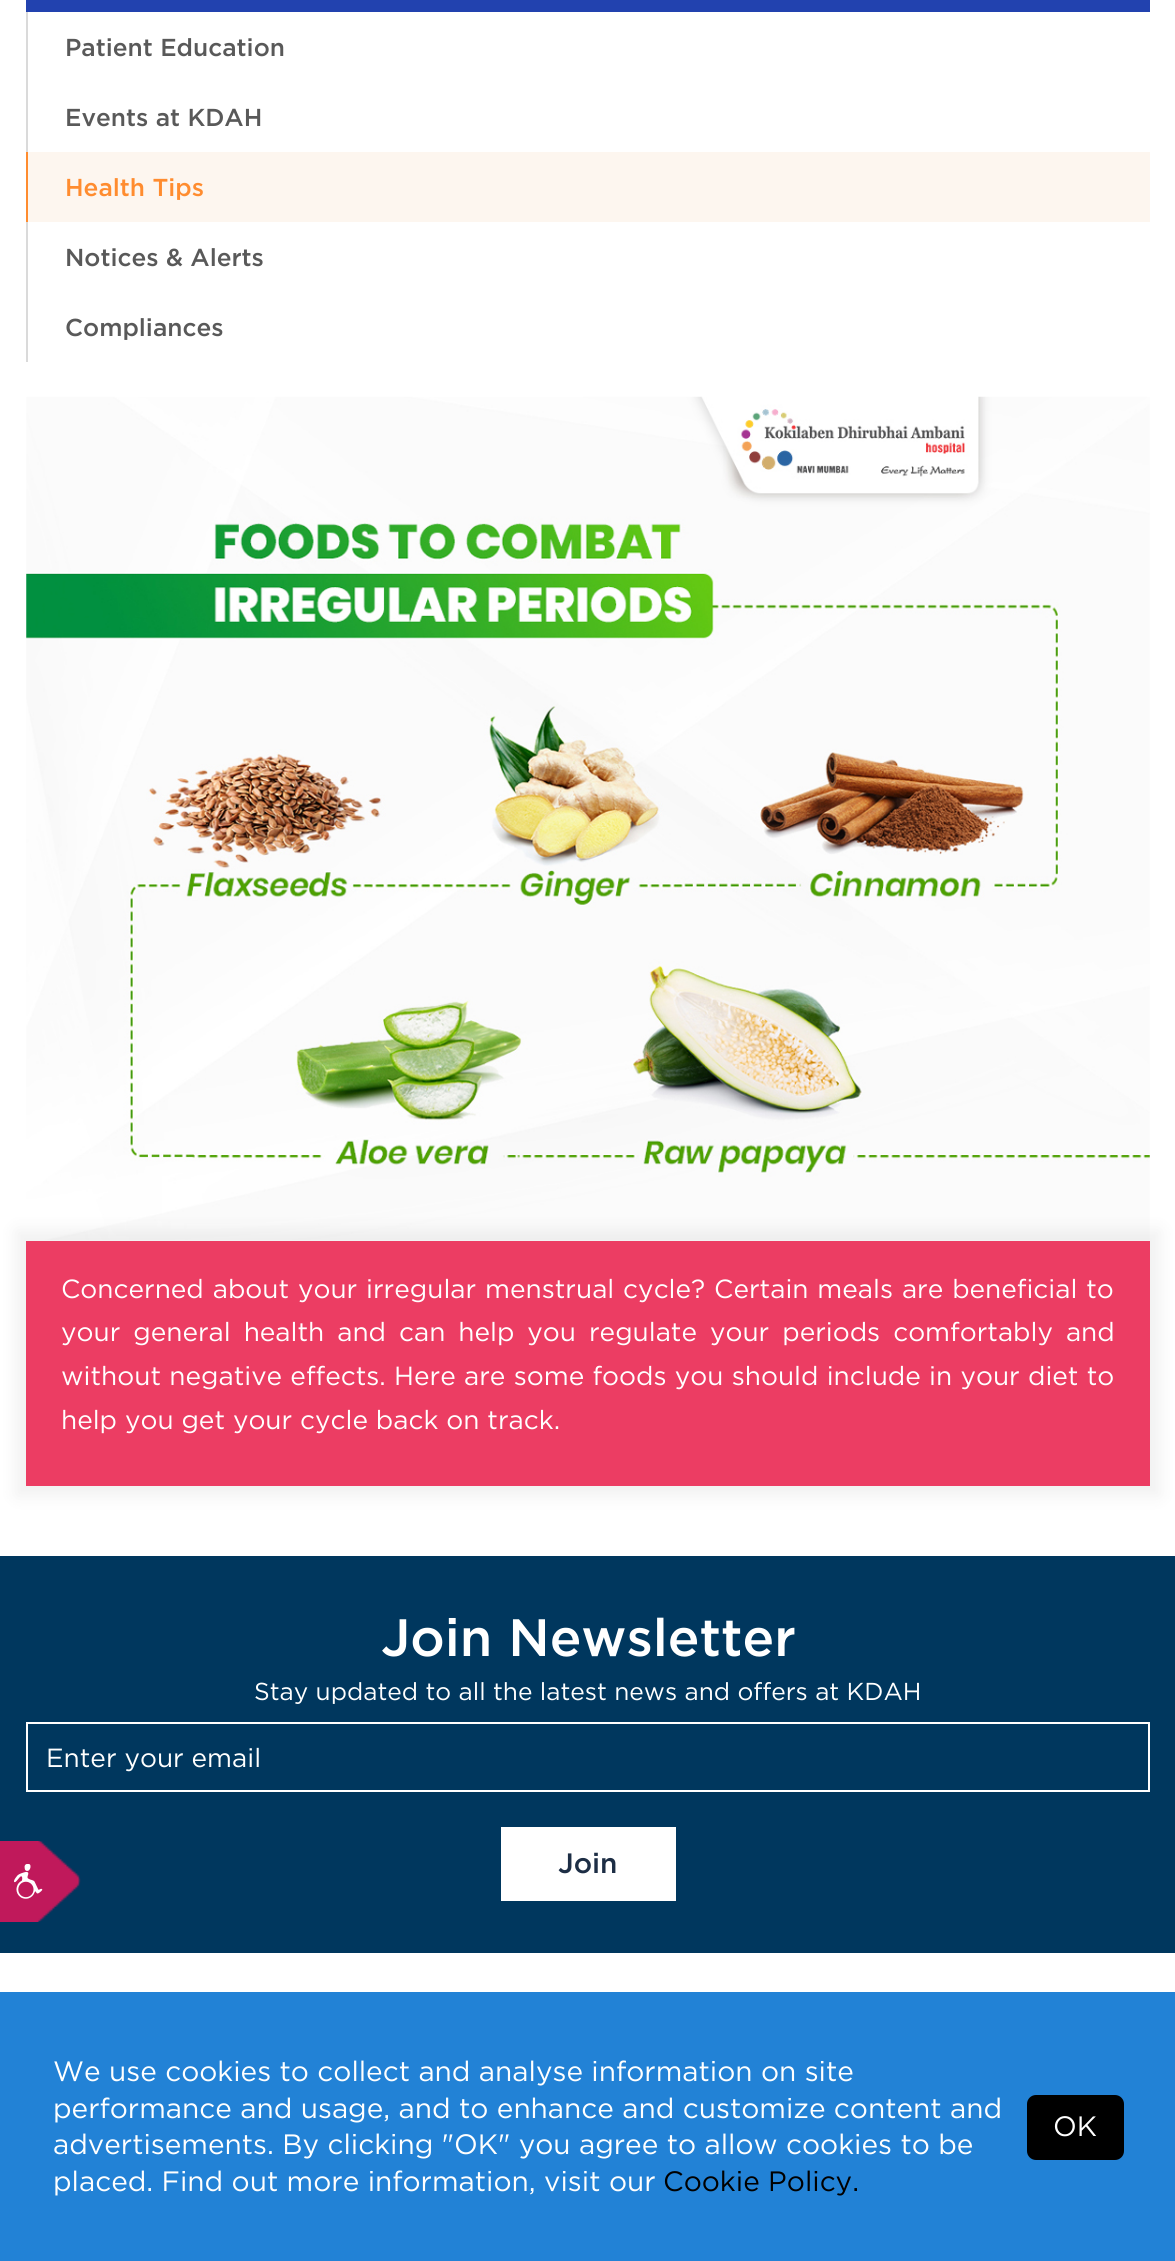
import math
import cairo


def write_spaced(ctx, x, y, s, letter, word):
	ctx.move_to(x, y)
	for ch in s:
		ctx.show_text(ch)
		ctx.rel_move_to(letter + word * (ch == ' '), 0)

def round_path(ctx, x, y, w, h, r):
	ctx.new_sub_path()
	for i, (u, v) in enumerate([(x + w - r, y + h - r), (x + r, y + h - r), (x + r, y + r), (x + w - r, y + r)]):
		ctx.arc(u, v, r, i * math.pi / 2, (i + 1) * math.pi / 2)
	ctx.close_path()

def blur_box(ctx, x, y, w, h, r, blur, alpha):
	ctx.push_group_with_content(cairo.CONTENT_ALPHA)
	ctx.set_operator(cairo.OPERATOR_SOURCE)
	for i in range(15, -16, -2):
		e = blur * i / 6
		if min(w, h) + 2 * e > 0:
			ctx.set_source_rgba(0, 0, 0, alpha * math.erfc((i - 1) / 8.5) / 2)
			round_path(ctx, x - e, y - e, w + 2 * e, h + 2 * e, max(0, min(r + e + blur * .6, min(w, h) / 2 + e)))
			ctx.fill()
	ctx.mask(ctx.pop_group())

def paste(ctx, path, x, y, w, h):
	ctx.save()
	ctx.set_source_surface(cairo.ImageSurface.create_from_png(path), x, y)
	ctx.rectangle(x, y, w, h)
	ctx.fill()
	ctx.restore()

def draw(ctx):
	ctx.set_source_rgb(1, 1, 1)
	ctx.paint()
	ctx.set_source_rgb(0.133, 0.259, 0.686)
	ctx.rectangle(26, 0, 1124, 12)
	ctx.fill()
	ctx.set_source_rgb(0.855, 0.855, 0.855)
	ctx.rectangle(26, 12, 2, 140)
	ctx.fill()
	ctx.select_font_face('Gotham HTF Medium')
	ctx.set_font_size(24.5)
	ctx.set_source_rgb(0.349, 0.349, 0.349)
	ctx.move_to(65, 56)
	ctx.show_text('Patient Education')
	ctx.move_to(65, 126)
	ctx.show_text('Events at KDAH')
	ctx.set_source_rgb(0.992, 0.961, 0.937)
	ctx.rectangle(28, 152, 1122, 70)
	ctx.fill()
	ctx.set_source_rgb(1, 0.549, 0.184)
	ctx.rectangle(26, 152, 2, 70)
	ctx.fill()
	ctx.move_to(65, 196)
	ctx.show_text('Health Tips')
	ctx.set_source_rgb(0.855, 0.855, 0.855)
	ctx.rectangle(26, 222, 2, 140)
	ctx.fill()
	ctx.set_source_rgb(0.349, 0.349, 0.349)
	ctx.move_to(65, 266)
	ctx.show_text('Notices & Alerts')
	ctx.move_to(65, 336)
	ctx.show_text('Compliances')
	paste(ctx, 'media/1.png', 26, 396, 1124, 844)
	ctx.set_source_rgb(0, 0, 0)
	blur_box(ctx, 16, 1230, 1144, 266, 0, 9, 0.06)
	ctx.set_source_rgb(0.922, 0.239, 0.388)
	ctx.rectangle(26, 1241, 1124, 245)
	ctx.fill()
	ctx.select_font_face('Gotham HTF')
	ctx.set_font_size(26.25)
	ctx.set_source_rgb(1, 1, 1)
	write_spaced(ctx, 61, 1298, 'Concerned about your irregular menstrual cycle? Certain meals are beneficial to', 0, 1)
	write_spaced(ctx, 61, 1341, 'your general health and can help you regulate your periods comfortably and', 0, 5.1)
	write_spaced(ctx, 61, 1385, 'without negative effects. Here are some foods you should include in your diet to', 0, 0.4)
	ctx.move_to(61, 1429)
	ctx.show_text('help you get your cycle back on track.')
	ctx.set_source_rgb(0, 0.216, 0.369)
	ctx.rectangle(0, 1556, 1175, 397)
	ctx.fill()
	paste(ctx, 'media/2.png', 0, 1841, 81, 81)
	paste(ctx, 'media/3.png', 14, 1864, 29, 35)
	ctx.select_font_face('Gotham HTF Medium')
	ctx.set_font_size(52.5)
	ctx.set_source_rgb(1, 1, 1)
	ctx.move_to(381, 1656)
	ctx.show_text('Join Newsletter')
	ctx.select_font_face('Gotham HTF')
	ctx.set_font_size(24.5)
	ctx.move_to(254, 1700)
	ctx.show_text('Stay updated to all the latest news and offers at KDAH')
	ctx.rectangle(27, 1723, 1122, 68)
	ctx.stroke()
	ctx.set_font_size(26.25)
	ctx.move_to(46, 1767)
	ctx.show_text('Enter your email')
	ctx.rectangle(501, 1827, 175, 74)
	ctx.fill()
	ctx.select_font_face('Gotham HTF Medium')
	ctx.set_font_size(28)
	ctx.set_source_rgb(0.114, 0.18, 0.271)
	ctx.move_to(558, 1873)
	ctx.show_text('Join')
	ctx.set_source_rgb(0.133, 0.51, 0.839)
	ctx.rectangle(0, 1992, 1175, 269)
	ctx.fill()
	ctx.select_font_face('Gotham HTF')
	ctx.set_source_rgb(1, 1, 1)
	for x, y, s in [
		(53, 2081, 'We use cookies to collect and analyse information on site'),
		(53, 2118, 'performance and usage, and to enhance and customize content and'),
		(53, 2154, 'advertisements. By clicking "OK" you agree to allow cookies to be'),
		(53, 2191, 'placed. Find out more information, visit our'),
	]:
		ctx.move_to(x, y)
		ctx.show_text(s)
	ctx.set_source_rgb(0, 0, 0)
	ctx.move_to(663, 2191)
	ctx.show_text('Cookie Policy.')
	round_path(ctx, 1027, 2095, 97, 65, 9)
	ctx.fill()
	ctx.set_source_rgb(1, 1, 1)
	ctx.move_to(1053, 2136)
	ctx.show_text('OK')


surface = cairo.ImageSurface(cairo.FORMAT_RGB24, 1175, 2261)
ctx = cairo.Context(surface)
options = cairo.FontOptions()
options.set_hint_metrics(cairo.HINT_METRICS_OFF)
options.set_hint_style(cairo.HINT_STYLE_NONE)
ctx.set_font_options(options)
ctx.set_miter_limit(4)
draw(ctx)
surface.write_to_png('image.png')
